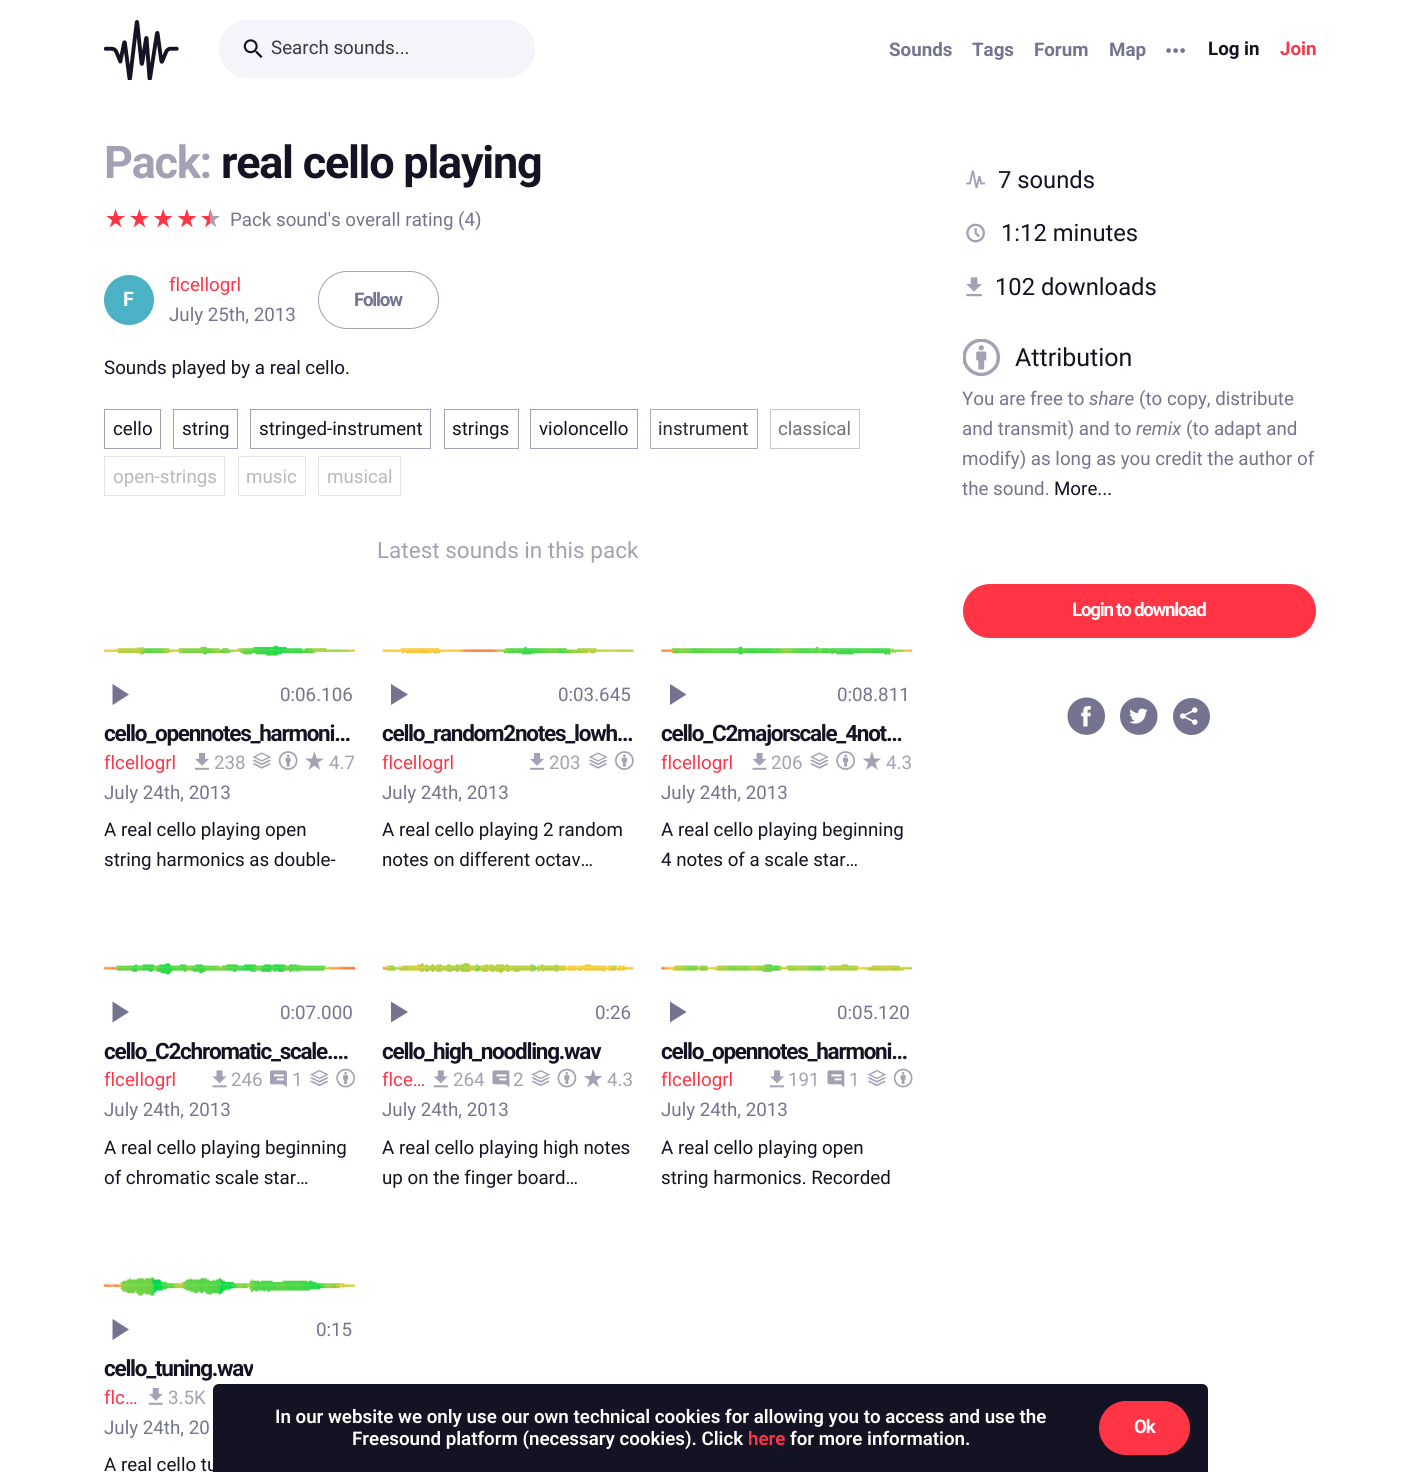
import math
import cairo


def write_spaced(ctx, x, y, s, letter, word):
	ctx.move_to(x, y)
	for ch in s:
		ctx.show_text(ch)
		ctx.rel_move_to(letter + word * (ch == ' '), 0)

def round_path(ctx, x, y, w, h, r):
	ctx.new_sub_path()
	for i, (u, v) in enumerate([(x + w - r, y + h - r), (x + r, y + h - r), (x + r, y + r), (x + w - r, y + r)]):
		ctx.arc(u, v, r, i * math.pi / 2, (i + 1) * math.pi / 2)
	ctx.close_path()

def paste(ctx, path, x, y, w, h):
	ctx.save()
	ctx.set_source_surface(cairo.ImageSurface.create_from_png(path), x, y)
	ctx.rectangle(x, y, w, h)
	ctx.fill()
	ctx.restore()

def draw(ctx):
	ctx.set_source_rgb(1, 1, 1)
	ctx.paint()
	paste(ctx, 'media/1.png', 104, 20, 75, 60)
	ctx.set_source_rgb(0.957, 0.957, 0.98)
	round_path(ctx, 219, 20, 316, 58, 29)
	ctx.fill()
	paste(ctx, 'media/2.png', 243, 39, 20, 19)
	ctx.select_font_face('Roboto')
	ctx.set_font_size(18.75)
	ctx.set_source_rgb(0.224, 0.224, 0.278)
	ctx.move_to(271, 54)
	ctx.show_text('Search sounds...')
	ctx.select_font_face('Roboto', cairo.FONT_SLANT_NORMAL, cairo.FONT_WEIGHT_BOLD)
	ctx.set_source_rgb(0.455, 0.455, 0.565)
	for x, y, s in [
		(889, 56, 'Sounds'),
		(972, 56, 'Tags'),
		(1034, 56, 'Forum'),
		(1109, 56, 'Map'),
	]:
		ctx.move_to(x, y)
		ctx.show_text(s)
	paste(ctx, 'media/3.png', 1166, 48, 19, 5)
	ctx.set_source_rgb(0.078, 0.078, 0.141)
	ctx.move_to(1208, 55)
	ctx.show_text('Log in')
	ctx.set_source_rgb(1, 0.208, 0.275)
	ctx.move_to(1280, 55)
	ctx.show_text('Join')
	ctx.set_font_size(45)
	ctx.set_source_rgb(0.635, 0.635, 0.706)
	write_spaced(ctx, 104, 178, 'Pack:', -1.25, 0)
	ctx.set_source_rgb(0.078, 0.078, 0.141)
	write_spaced(ctx, 221, 178, 'real cello playing', -1.25, 0)
	paste(ctx, 'media/4.png', 106, 208, 19, 20)
	paste(ctx, 'media/5.png', 130, 208, 19, 20)
	paste(ctx, 'media/6.png', 154, 208, 19, 20)
	paste(ctx, 'media/7.png', 177, 208, 20, 20)
	ctx.set_source_rgb(0.635, 0.635, 0.706)
	ctx.new_path()
	ctx.move_to(210.5, 208.5)
	ctx.line_to(213, 216)
	ctx.line_to(220, 216)
	ctx.line_to(214, 220.5)
	ctx.line_to(216.5, 227.5)
	ctx.line_to(210.5, 223)
	ctx.close_path()
	ctx.fill()
	ctx.set_source_rgb(1, 0.208, 0.275)
	ctx.new_path()
	ctx.move_to(210.5, 208.5)
	ctx.line_to(208.5, 216)
	ctx.line_to(201, 216)
	ctx.line_to(207, 220.5)
	ctx.line_to(205, 227.5)
	ctx.line_to(210.5, 223)
	ctx.close_path()
	ctx.fill()
	ctx.select_font_face('Roboto')
	ctx.set_font_size(18.75)
	ctx.set_source_rgb(0.455, 0.455, 0.565)
	ctx.move_to(230, 226)
	ctx.show_text('Pack sound\'s overall rating (4)')
	ctx.set_source_rgb(0.29, 0.698, 0.769)
	ctx.new_path()
	ctx.arc(129, 300, 25, 0, 2 * math.pi)
	ctx.fill()
	ctx.select_font_face('Roboto', cairo.FONT_SLANT_NORMAL, cairo.FONT_WEIGHT_BOLD)
	ctx.set_font_size(20)
	ctx.set_source_rgb(1, 1, 1)
	ctx.move_to(123, 306)
	ctx.show_text('F')
	ctx.select_font_face('Roboto')
	ctx.set_font_size(18.75)
	ctx.set_source_rgb(1, 0.208, 0.275)
	ctx.move_to(169, 291)
	ctx.show_text('flcellogrl')
	ctx.set_source_rgb(0.455, 0.455, 0.565)
	ctx.move_to(169, 321)
	ctx.show_text('July 25th, 2013')
	round_path(ctx, 318.5, 271.5, 120, 57, 28.5)
	ctx.set_source_rgb(0.635, 0.635, 0.706)
	ctx.set_line_width(1)
	ctx.stroke()
	ctx.select_font_face('Roboto', cairo.FONT_SLANT_NORMAL, cairo.FONT_WEIGHT_BOLD)
	ctx.set_source_rgb(0.455, 0.455, 0.565)
	write_spaced(ctx, 354, 306, 'Follow', -1.25, 0)
	ctx.select_font_face('Roboto')
	ctx.set_source_rgb(0.078, 0.078, 0.141)
	ctx.move_to(104, 374)
	ctx.show_text('Sounds played by a real cello.')
	ctx.rectangle(104.5, 409.5, 56, 39)
	ctx.set_source_rgb(0.635, 0.635, 0.706)
	ctx.stroke()
	ctx.set_source_rgb(0.078, 0.078, 0.141)
	ctx.move_to(113, 435)
	ctx.show_text('cello')
	ctx.rectangle(173.5, 409.5, 64, 39)
	ctx.set_source_rgb(0.635, 0.635, 0.706)
	ctx.stroke()
	ctx.set_source_rgb(0.078, 0.078, 0.141)
	ctx.move_to(182, 435)
	ctx.show_text('string')
	ctx.rectangle(250.5, 409.5, 180, 39)
	ctx.set_source_rgb(0.635, 0.635, 0.706)
	ctx.stroke()
	ctx.set_source_rgb(0.078, 0.078, 0.141)
	ctx.move_to(259, 435)
	ctx.show_text('stringed-instrument')
	ctx.rectangle(444.5, 409.5, 74, 39)
	ctx.set_source_rgb(0.635, 0.635, 0.706)
	ctx.stroke()
	ctx.set_source_rgb(0.078, 0.078, 0.141)
	ctx.move_to(452, 435)
	ctx.show_text('strings')
	ctx.rectangle(530.5, 409.5, 107, 39)
	ctx.set_source_rgb(0.635, 0.635, 0.706)
	ctx.stroke()
	ctx.set_source_rgb(0.078, 0.078, 0.141)
	ctx.move_to(539, 435)
	ctx.show_text('violoncello')
	ctx.rectangle(650.5, 409.5, 107, 39)
	ctx.set_source_rgb(0.671, 0.671, 0.737)
	ctx.stroke()
	ctx.set_source_rgb(0.173, 0.173, 0.227)
	ctx.move_to(658, 435)
	ctx.show_text('instrument')
	ctx.rectangle(770.5, 409.5, 89, 39)
	ctx.set_source_rgb(0.78, 0.78, 0.824)
	ctx.stroke()
	ctx.set_source_rgb(0.447, 0.447, 0.486)
	ctx.move_to(778, 435)
	ctx.show_text('classical')
	ctx.rectangle(104.5, 456.5, 120, 39)
	ctx.set_source_rgb(0.89, 0.89, 0.914)
	ctx.stroke()
	ctx.set_source_rgb(0.725, 0.725, 0.741)
	ctx.move_to(113, 483)
	ctx.show_text('open-strings')
	ctx.rectangle(238.5, 456.5, 67, 39)
	ctx.set_source_rgb(0.89, 0.89, 0.914)
	ctx.stroke()
	ctx.set_source_rgb(0.725, 0.725, 0.741)
	ctx.move_to(246, 483)
	ctx.show_text('music')
	ctx.rectangle(318.5, 456.5, 82, 39)
	ctx.set_source_rgb(0.89, 0.89, 0.914)
	ctx.stroke()
	ctx.set_source_rgb(0.725, 0.725, 0.741)
	ctx.move_to(327, 483)
	ctx.show_text('musical')
	ctx.set_font_size(22.5)
	ctx.set_source_rgb(0.635, 0.635, 0.706)
	ctx.move_to(377, 558)
	ctx.show_text('Latest sounds in this pack')
	paste(ctx, 'media/8.png', 103, 645, 252, 11)
	ctx.set_source_rgb(0.455, 0.455, 0.565)
	ctx.new_path()
	ctx.move_to(112.5, 684)
	ctx.line_to(112.5, 705)
	ctx.line_to(129, 694.5)
	ctx.close_path()
	ctx.fill()
	ctx.set_font_size(18.75)
	ctx.move_to(280, 701)
	ctx.show_text('0:06.106')
	ctx.select_font_face('Roboto', cairo.FONT_SLANT_NORMAL, cairo.FONT_WEIGHT_BOLD)
	ctx.set_font_size(22.5)
	ctx.set_source_rgb(0.078, 0.078, 0.141)
	write_spaced(ctx, 104, 741, 'cello_opennotes_harmoni…', -1.25, 0)
	ctx.select_font_face('Roboto')
	ctx.set_font_size(18.75)
	ctx.set_source_rgb(1, 0.208, 0.275)
	ctx.move_to(104, 769)
	ctx.show_text('flcellogrl')
	paste(ctx, 'media/9.png', 195, 752, 15, 18)
	ctx.set_source_rgb(0.635, 0.635, 0.706)
	ctx.move_to(214, 769)
	ctx.show_text('238')
	paste(ctx, 'media/10.png', 252, 752, 19, 17)
	paste(ctx, 'media/11.png', 278, 751, 20, 19)
	paste(ctx, 'media/12.png', 305, 751, 19, 19)
	ctx.move_to(329, 769)
	ctx.show_text('4.7')
	ctx.set_source_rgb(0.455, 0.455, 0.565)
	ctx.move_to(104, 799)
	ctx.show_text('July 24th, 2013')
	ctx.set_source_rgb(0.078, 0.078, 0.141)
	ctx.move_to(104, 836)
	ctx.show_text('A real cello playing open')
	ctx.move_to(104, 866)
	ctx.show_text('string harmonics as double-')
	paste(ctx, 'media/13.png', 382, 646, 252, 9)
	ctx.set_source_rgb(0.455, 0.455, 0.565)
	ctx.new_path()
	ctx.move_to(391, 684)
	ctx.line_to(391, 705)
	ctx.line_to(408, 694.5)
	ctx.close_path()
	ctx.fill()
	ctx.move_to(558, 701)
	ctx.show_text('0:03.645')
	ctx.select_font_face('Roboto', cairo.FONT_SLANT_NORMAL, cairo.FONT_WEIGHT_BOLD)
	ctx.set_font_size(22.5)
	ctx.set_source_rgb(0.078, 0.078, 0.141)
	write_spaced(ctx, 382, 741, 'cello_random2notes_lowh…', -1.25, 0)
	ctx.select_font_face('Roboto')
	ctx.set_font_size(18.75)
	ctx.set_source_rgb(1, 0.208, 0.275)
	ctx.move_to(382, 769)
	ctx.show_text('flcellogrl')
	paste(ctx, 'media/9.png', 530, 752, 15, 18)
	ctx.set_source_rgb(0.635, 0.635, 0.706)
	ctx.move_to(549, 769)
	ctx.show_text('203')
	paste(ctx, 'media/14.png', 589, 752, 19, 17)
	paste(ctx, 'media/15.png', 615, 751, 19, 19)
	ctx.set_source_rgb(0.455, 0.455, 0.565)
	ctx.move_to(382, 799)
	ctx.show_text('July 24th, 2013')
	ctx.set_source_rgb(0.078, 0.078, 0.141)
	ctx.move_to(382, 836)
	ctx.show_text('A real cello playing 2 random')
	ctx.move_to(382, 866)
	ctx.show_text('notes on different octav…')
	paste(ctx, 'media/16.png', 661, 646, 252, 9)
	ctx.set_source_rgb(0.455, 0.455, 0.565)
	ctx.new_path()
	ctx.move_to(670, 684)
	ctx.line_to(670, 705)
	ctx.line_to(686.5, 694.5)
	ctx.close_path()
	ctx.fill()
	ctx.move_to(837, 701)
	ctx.show_text('0:08.811')
	ctx.select_font_face('Roboto', cairo.FONT_SLANT_NORMAL, cairo.FONT_WEIGHT_BOLD)
	ctx.set_font_size(22.5)
	ctx.set_source_rgb(0.078, 0.078, 0.141)
	write_spaced(ctx, 661, 741, 'cello_C2majorscale_4not…', -1.25, 0)
	ctx.select_font_face('Roboto')
	ctx.set_font_size(18.75)
	ctx.set_source_rgb(1, 0.208, 0.275)
	ctx.move_to(661, 769)
	ctx.show_text('flcellogrl')
	paste(ctx, 'media/17.png', 752, 752, 15, 18)
	ctx.set_source_rgb(0.635, 0.635, 0.706)
	ctx.move_to(771, 769)
	ctx.show_text('206')
	paste(ctx, 'media/18.png', 810, 752, 19, 17)
	paste(ctx, 'media/19.png', 836, 751, 19, 19)
	paste(ctx, 'media/20.png', 862, 751, 19, 19)
	ctx.move_to(886, 769)
	ctx.show_text('4.3')
	ctx.set_source_rgb(0.455, 0.455, 0.565)
	ctx.move_to(661, 799)
	ctx.show_text('July 24th, 2013')
	ctx.set_source_rgb(0.078, 0.078, 0.141)
	ctx.move_to(661, 836)
	ctx.show_text('A real cello playing beginning')
	ctx.move_to(661, 866)
	ctx.show_text('4 notes of a scale star…')
	paste(ctx, 'media/21.png', 103, 963, 252, 12)
	ctx.set_source_rgb(0.455, 0.455, 0.565)
	ctx.new_path()
	ctx.move_to(112.5, 1001.5)
	ctx.line_to(112.5, 1022.5)
	ctx.line_to(129, 1012)
	ctx.close_path()
	ctx.fill()
	ctx.move_to(280, 1019)
	ctx.show_text('0:07.000')
	ctx.select_font_face('Roboto', cairo.FONT_SLANT_NORMAL, cairo.FONT_WEIGHT_BOLD)
	ctx.set_font_size(22.5)
	ctx.set_source_rgb(0.078, 0.078, 0.141)
	write_spaced(ctx, 104, 1059, 'cello_C2chromatic_scale.…', -1.25, 0)
	ctx.select_font_face('Roboto')
	ctx.set_font_size(18.75)
	ctx.set_source_rgb(1, 0.208, 0.275)
	ctx.move_to(104, 1086)
	ctx.show_text('flcellogrl')
	paste(ctx, 'media/22.png', 212, 1070, 15, 18)
	ctx.set_source_rgb(0.635, 0.635, 0.706)
	ctx.move_to(231, 1086)
	ctx.show_text('246')
	paste(ctx, 'media/23.png', 270, 1070, 17, 18)
	ctx.move_to(292, 1086)
	ctx.show_text('1')
	paste(ctx, 'media/24.png', 310, 1069, 19, 18)
	paste(ctx, 'media/25.png', 336, 1068, 19, 20)
	ctx.set_source_rgb(0.455, 0.455, 0.565)
	ctx.move_to(104, 1116)
	ctx.show_text('July 24th, 2013')
	ctx.set_source_rgb(0.078, 0.078, 0.141)
	ctx.move_to(104, 1154)
	ctx.show_text('A real cello playing beginning')
	ctx.move_to(104, 1184)
	ctx.show_text('of chromatic scale star…')
	paste(ctx, 'media/26.png', 382, 963, 252, 11)
	ctx.set_source_rgb(0.455, 0.455, 0.565)
	ctx.new_path()
	ctx.move_to(391, 1001.5)
	ctx.line_to(391, 1022.5)
	ctx.line_to(408, 1012)
	ctx.close_path()
	ctx.fill()
	ctx.move_to(595, 1019)
	ctx.show_text('0:26')
	ctx.select_font_face('Roboto', cairo.FONT_SLANT_NORMAL, cairo.FONT_WEIGHT_BOLD)
	ctx.set_font_size(22.5)
	ctx.set_source_rgb(0.078, 0.078, 0.141)
	write_spaced(ctx, 382, 1059, 'cello_high_noodling.wav', -1.25, 0)
	ctx.select_font_face('Roboto')
	ctx.set_font_size(18.75)
	ctx.set_source_rgb(1, 0.208, 0.275)
	ctx.move_to(382, 1086)
	ctx.show_text('flce…')
	paste(ctx, 'media/27.png', 433, 1070, 15, 18)
	ctx.set_source_rgb(0.635, 0.635, 0.706)
	ctx.move_to(453, 1086)
	ctx.show_text('264')
	paste(ctx, 'media/28.png', 492, 1070, 18, 18)
	ctx.move_to(513, 1086)
	ctx.show_text('2')
	paste(ctx, 'media/29.png', 531, 1069, 19, 18)
	paste(ctx, 'media/30.png', 557, 1068, 20, 20)
	paste(ctx, 'media/31.png', 584, 1069, 19, 19)
	ctx.move_to(607, 1086)
	ctx.show_text('4.3')
	ctx.set_source_rgb(0.455, 0.455, 0.565)
	ctx.move_to(382, 1116)
	ctx.show_text('July 24th, 2013')
	ctx.set_source_rgb(0.078, 0.078, 0.141)
	ctx.move_to(382, 1154)
	ctx.show_text('A real cello playing high notes')
	ctx.move_to(382, 1184)
	ctx.show_text('up on the finger board…')
	paste(ctx, 'media/32.png', 661, 964, 252, 8)
	ctx.set_source_rgb(0.455, 0.455, 0.565)
	ctx.new_path()
	ctx.move_to(670, 1001.5)
	ctx.line_to(670, 1022.5)
	ctx.line_to(686.5, 1012)
	ctx.close_path()
	ctx.fill()
	ctx.move_to(837, 1019)
	ctx.show_text('0:05.120')
	ctx.select_font_face('Roboto', cairo.FONT_SLANT_NORMAL, cairo.FONT_WEIGHT_BOLD)
	ctx.set_font_size(22.5)
	ctx.set_source_rgb(0.078, 0.078, 0.141)
	write_spaced(ctx, 661, 1059, 'cello_opennotes_harmoni…', -1.25, 0)
	ctx.select_font_face('Roboto')
	ctx.set_font_size(18.75)
	ctx.set_source_rgb(1, 0.208, 0.275)
	ctx.move_to(661, 1086)
	ctx.show_text('flcellogrl')
	paste(ctx, 'media/33.png', 770, 1070, 15, 18)
	ctx.set_source_rgb(0.635, 0.635, 0.706)
	ctx.move_to(788, 1086)
	ctx.show_text('191')
	paste(ctx, 'media/28.png', 827, 1070, 18, 18)
	ctx.move_to(849, 1086)
	ctx.show_text('1')
	paste(ctx, 'media/34.png', 867, 1070, 19, 17)
	paste(ctx, 'media/35.png', 893, 1068, 20, 20)
	ctx.set_source_rgb(0.455, 0.455, 0.565)
	ctx.move_to(661, 1116)
	ctx.show_text('July 24th, 2013')
	ctx.set_source_rgb(0.078, 0.078, 0.141)
	ctx.move_to(661, 1154)
	ctx.show_text('A real cello playing open')
	ctx.move_to(661, 1184)
	ctx.show_text('string harmonics. Recorded')
	paste(ctx, 'media/36.png', 103, 1276, 252, 20)
	ctx.set_source_rgb(0.455, 0.455, 0.565)
	ctx.new_path()
	ctx.move_to(112.5, 1319)
	ctx.line_to(112.5, 1340)
	ctx.line_to(129, 1329.5)
	ctx.close_path()
	ctx.fill()
	ctx.move_to(316, 1336)
	ctx.show_text('0:15')
	ctx.save()
	ctx.rectangle(104, 1355, 149, 28)
	ctx.clip()
	ctx.select_font_face('Roboto', cairo.FONT_SLANT_NORMAL, cairo.FONT_WEIGHT_BOLD)
	ctx.set_font_size(22.5)
	ctx.set_source_rgb(0.078, 0.078, 0.141)
	write_spaced(ctx, 104, 1376, 'cello_tuning.wav', -1.25, 0)
	ctx.restore()
	ctx.set_source_rgb(1, 0.208, 0.275)
	ctx.move_to(104, 1404)
	ctx.show_text('flc…')
	paste(ctx, 'media/37.png', 213, 1389, 1, 1)
	paste(ctx, 'media/38.png', 148, 1387, 15, 18)
	ctx.set_source_rgb(0.635, 0.635, 0.706)
	ctx.move_to(168, 1404)
	ctx.show_text('3.5K')
	ctx.set_source_rgb(0.455, 0.455, 0.565)
	ctx.move_to(104, 1434)
	ctx.show_text('July 24th, 20')
	ctx.set_source_rgb(0.078, 0.078, 0.141)
	ctx.move_to(104, 1471)
	ctx.show_text('A real cello tu')
	paste(ctx, 'media/39.png', 966, 170, 19, 19)
	ctx.set_font_size(23.75)
	ctx.move_to(998, 188)
	ctx.show_text('7 sounds')
	paste(ctx, 'media/40.png', 966, 223, 19, 20)
	ctx.move_to(1001, 241)
	ctx.show_text('1:12 minutes')
	paste(ctx, 'media/41.png', 966, 277, 16, 20)
	ctx.move_to(995, 295)
	ctx.show_text('102 downloads')
	paste(ctx, 'media/42.png', 963, 339, 37, 37)
	ctx.set_font_size(25)
	ctx.move_to(1015, 366)
	ctx.show_text('Attribution')
	ctx.set_font_size(18.75)
	ctx.set_source_rgb(0.455, 0.455, 0.565)
	ctx.move_to(962, 405)
	ctx.show_text('You are free to')
	ctx.select_font_face('Roboto', cairo.FONT_SLANT_ITALIC)
	ctx.move_to(1089, 405)
	ctx.show_text('share')
	ctx.select_font_face('Roboto')
	ctx.move_to(1139, 405)
	ctx.show_text('(to copy, distribute')
	ctx.move_to(962, 435)
	ctx.show_text('and transmit) and to')
	ctx.select_font_face('Roboto', cairo.FONT_SLANT_ITALIC)
	ctx.move_to(1136, 435)
	ctx.show_text('remix')
	ctx.select_font_face('Roboto')
	for x, y, s in [
		(1186, 435, '(to adapt and'),
		(962, 465, 'modify) as long as you credit the author of'),
		(962, 495, 'the sound.'),
	]:
		ctx.move_to(x, y)
		ctx.show_text(s)
	ctx.set_source_rgb(0.078, 0.078, 0.141)
	ctx.move_to(1054, 495)
	ctx.show_text('More...')
	ctx.set_source_rgb(1, 0.208, 0.275)
	round_path(ctx, 963, 584, 353, 54, 27)
	ctx.fill()
	ctx.select_font_face('Roboto', cairo.FONT_SLANT_NORMAL, cairo.FONT_WEIGHT_BOLD)
	ctx.set_source_rgb(1, 1, 1)
	write_spaced(ctx, 1072, 616, 'Login to download', -1.25, 0)
	ctx.set_source_rgb(0.455, 0.455, 0.565)
	ctx.new_path()
	ctx.move_to(1067.5, 716)
	ctx.curve_to(1067.5, 698, 1091.5, 690.5, 1102, 705.5)
	ctx.curve_to(1104, 708.5, 1105, 712.5, 1105, 716)
	ctx.curve_to(1105, 720, 1104, 723.5, 1102, 726.5)
	ctx.curve_to(1091.5, 742, 1067.5, 734.5, 1067.5, 716)
	ctx.close_path()
	ctx.fill()
	paste(ctx, 'media/43.png', 1081, 706, 10, 21)
	ctx.new_path()
	ctx.move_to(1120, 716)
	ctx.curve_to(1120, 712.5, 1121, 708.5, 1123, 705.5)
	ctx.curve_to(1133.5, 690.5, 1157.5, 698, 1157.5, 716)
	ctx.curve_to(1157.5, 720, 1156.5, 723.5, 1154.5, 726.5)
	ctx.curve_to(1144, 742, 1120, 734.5, 1120, 716)
	ctx.close_path()
	ctx.fill()
	paste(ctx, 'media/44.png', 1129, 708, 19, 16)
	ctx.arc(1191.5, 716.5, 18.5, 0, 2 * math.pi)
	ctx.fill()
	paste(ctx, 'media/45.png', 1180, 707, 18, 18)
	ctx.set_source_rgb(0.078, 0.078, 0.141)
	ctx.new_path()
	ctx.move_to(219, 1384)
	ctx.line_to(1202, 1384)
	ctx.curve_to(1205.5, 1384, 1208, 1386.5, 1208, 1390)
	ctx.line_to(1208, 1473)
	ctx.line_to(213, 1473)
	ctx.line_to(213, 1390)
	ctx.curve_to(213, 1386.5, 215.5, 1384, 219, 1384)
	ctx.close_path()
	ctx.fill()
	ctx.select_font_face('Roboto SemiBold')
	ctx.set_source_rgb(1, 1, 1)
	ctx.move_to(275, 1423)
	ctx.show_text('In our website we only use our own technical cookies for allowing you to access and use the')
	ctx.move_to(352, 1445)
	ctx.show_text('Freesound platform (necessary cookies). Click')
	ctx.set_source_rgb(1, 0.208, 0.275)
	ctx.move_to(748, 1445)
	ctx.show_text('here')
	ctx.set_source_rgb(1, 1, 1)
	ctx.move_to(790, 1445)
	ctx.show_text('for more information.')
	ctx.set_source_rgb(1, 0.208, 0.275)
	round_path(ctx, 1099, 1401, 91, 54, 27)
	ctx.fill()
	ctx.select_font_face('Roboto', cairo.FONT_SLANT_NORMAL, cairo.FONT_WEIGHT_BOLD)
	ctx.set_source_rgb(1, 1, 1)
	write_spaced(ctx, 1134, 1433, 'Ok', -1.25, 0)


surface = cairo.ImageSurface(cairo.FORMAT_RGB24, 1420, 1472)
ctx = cairo.Context(surface)
options = cairo.FontOptions()
options.set_hint_metrics(cairo.HINT_METRICS_OFF)
options.set_hint_style(cairo.HINT_STYLE_NONE)
ctx.set_font_options(options)
ctx.set_miter_limit(4)
draw(ctx)
surface.write_to_png('image.png')
